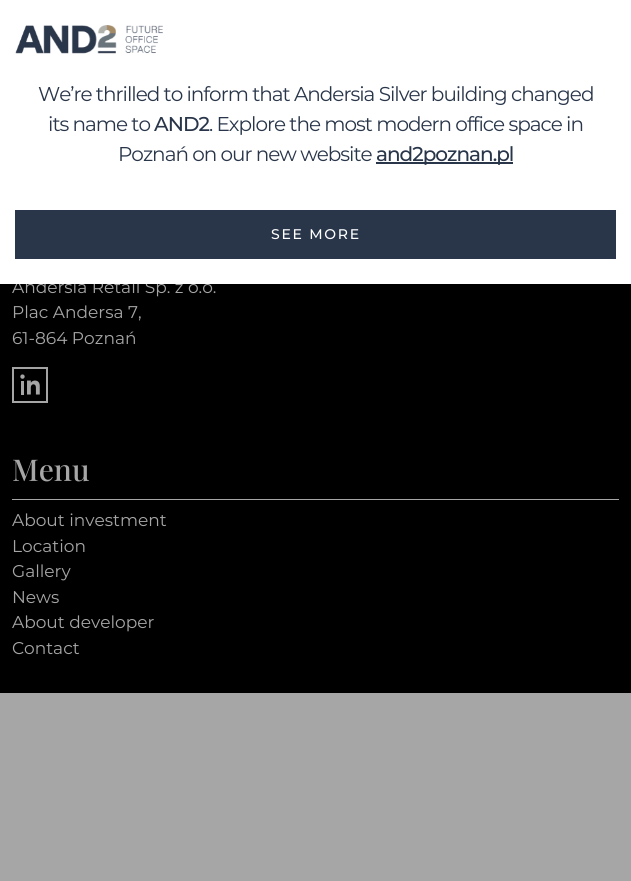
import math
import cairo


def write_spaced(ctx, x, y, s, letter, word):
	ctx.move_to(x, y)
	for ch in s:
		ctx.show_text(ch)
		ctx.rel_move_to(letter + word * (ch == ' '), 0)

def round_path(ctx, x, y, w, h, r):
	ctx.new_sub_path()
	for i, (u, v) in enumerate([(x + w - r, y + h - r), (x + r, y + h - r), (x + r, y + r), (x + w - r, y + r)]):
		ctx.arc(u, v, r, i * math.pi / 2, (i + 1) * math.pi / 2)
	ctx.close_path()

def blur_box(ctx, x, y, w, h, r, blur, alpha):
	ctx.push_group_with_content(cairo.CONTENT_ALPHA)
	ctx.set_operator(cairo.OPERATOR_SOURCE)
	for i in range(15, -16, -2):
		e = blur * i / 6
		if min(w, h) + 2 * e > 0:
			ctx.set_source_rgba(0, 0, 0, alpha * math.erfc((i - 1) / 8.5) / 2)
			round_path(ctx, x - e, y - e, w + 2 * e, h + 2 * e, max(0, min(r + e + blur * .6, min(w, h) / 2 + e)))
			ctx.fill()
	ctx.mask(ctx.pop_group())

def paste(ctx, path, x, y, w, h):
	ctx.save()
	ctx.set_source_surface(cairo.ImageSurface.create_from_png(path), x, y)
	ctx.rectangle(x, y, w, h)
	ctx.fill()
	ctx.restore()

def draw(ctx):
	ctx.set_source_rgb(0.651, 0.651, 0.651)
	ctx.paint()
	ctx.set_source_rgb(0, 0, 0)
	ctx.rectangle(0, 284, 631, 409)
	ctx.fill()
	paste(ctx, 'media/2.png', 12, 367, 36, 36)
	ctx.set_source_rgb(0, 0, 0)
	blur_box(ctx, 0, 34, 631, 284, 0, 32.5, 0.35)
	ctx.select_font_face('Montserrat')
	ctx.set_font_size(17)
	ctx.set_source_rgb(0.651, 0.651, 0.651)
	ctx.move_to(12, 293)
	ctx.show_text('Andersia Retail Sp. z o.o.')
	ctx.set_source_rgb(1, 1, 1)
	ctx.rectangle(0, 0, 631, 284)
	ctx.fill()
	paste(ctx, 'media/1.png', 15, 25, 148, 29)
	ctx.set_font_size(20)
	ctx.set_source_rgb(0.161, 0.212, 0.29)
	write_spaced(ctx, 38, 101, 'We’re thrilled to inform that Andersia Silver building changed', -1, 0)
	write_spaced(ctx, 48, 131, 'its name to', -1, 0)
	ctx.select_font_face('Montserrat Medium')
	write_spaced(ctx, 154, 131, 'AND2', -1, 0)
	ctx.select_font_face('Montserrat')
	write_spaced(ctx, 209, 131, '. Explore the most modern office space in', -1, 0)
	write_spaced(ctx, 118, 161, 'Poznań on our new website', -1, 0)
	ctx.rectangle(376, 162, 137, 2)
	ctx.fill()
	ctx.select_font_face('Montserrat Medium')
	write_spaced(ctx, 376, 161, 'and2poznan.pl', -1, 0)
	ctx.rectangle(15, 210, 601, 49)
	ctx.fill()
	ctx.set_font_size(14)
	ctx.set_source_rgb(1, 1, 1)
	write_spaced(ctx, 271, 239, 'SEE MORE', 1.75, 0)
	ctx.select_font_face('Montserrat')
	ctx.set_font_size(17)
	ctx.set_source_rgb(0.651, 0.651, 0.651)
	ctx.move_to(12, 318)
	ctx.show_text('Plac Andersa 7,')
	ctx.move_to(12, 344)
	ctx.show_text('61-864 Poznań')
	ctx.rectangle(12, 499, 607, 1)
	ctx.fill()
	ctx.select_font_face('Playfair Display Medium')
	ctx.set_font_size(30)
	ctx.move_to(12, 481)
	ctx.show_text('Menu')
	ctx.select_font_face('Montserrat')
	ctx.set_font_size(17)
	for x, y, s in [
		(12, 526, 'About investment'),
		(12, 552, 'Location'),
		(12, 577, 'Gallery'),
		(12, 603, 'News'),
		(12, 628, 'About developer'),
		(12, 654, 'Contact'),
	]:
		ctx.move_to(x, y)
		ctx.show_text(s)


surface = cairo.ImageSurface(cairo.FORMAT_RGB24, 631, 881)
ctx = cairo.Context(surface)
options = cairo.FontOptions()
options.set_hint_metrics(cairo.HINT_METRICS_OFF)
options.set_hint_style(cairo.HINT_STYLE_NONE)
ctx.set_font_options(options)
ctx.set_miter_limit(4)
draw(ctx)
surface.write_to_png('image.png')
